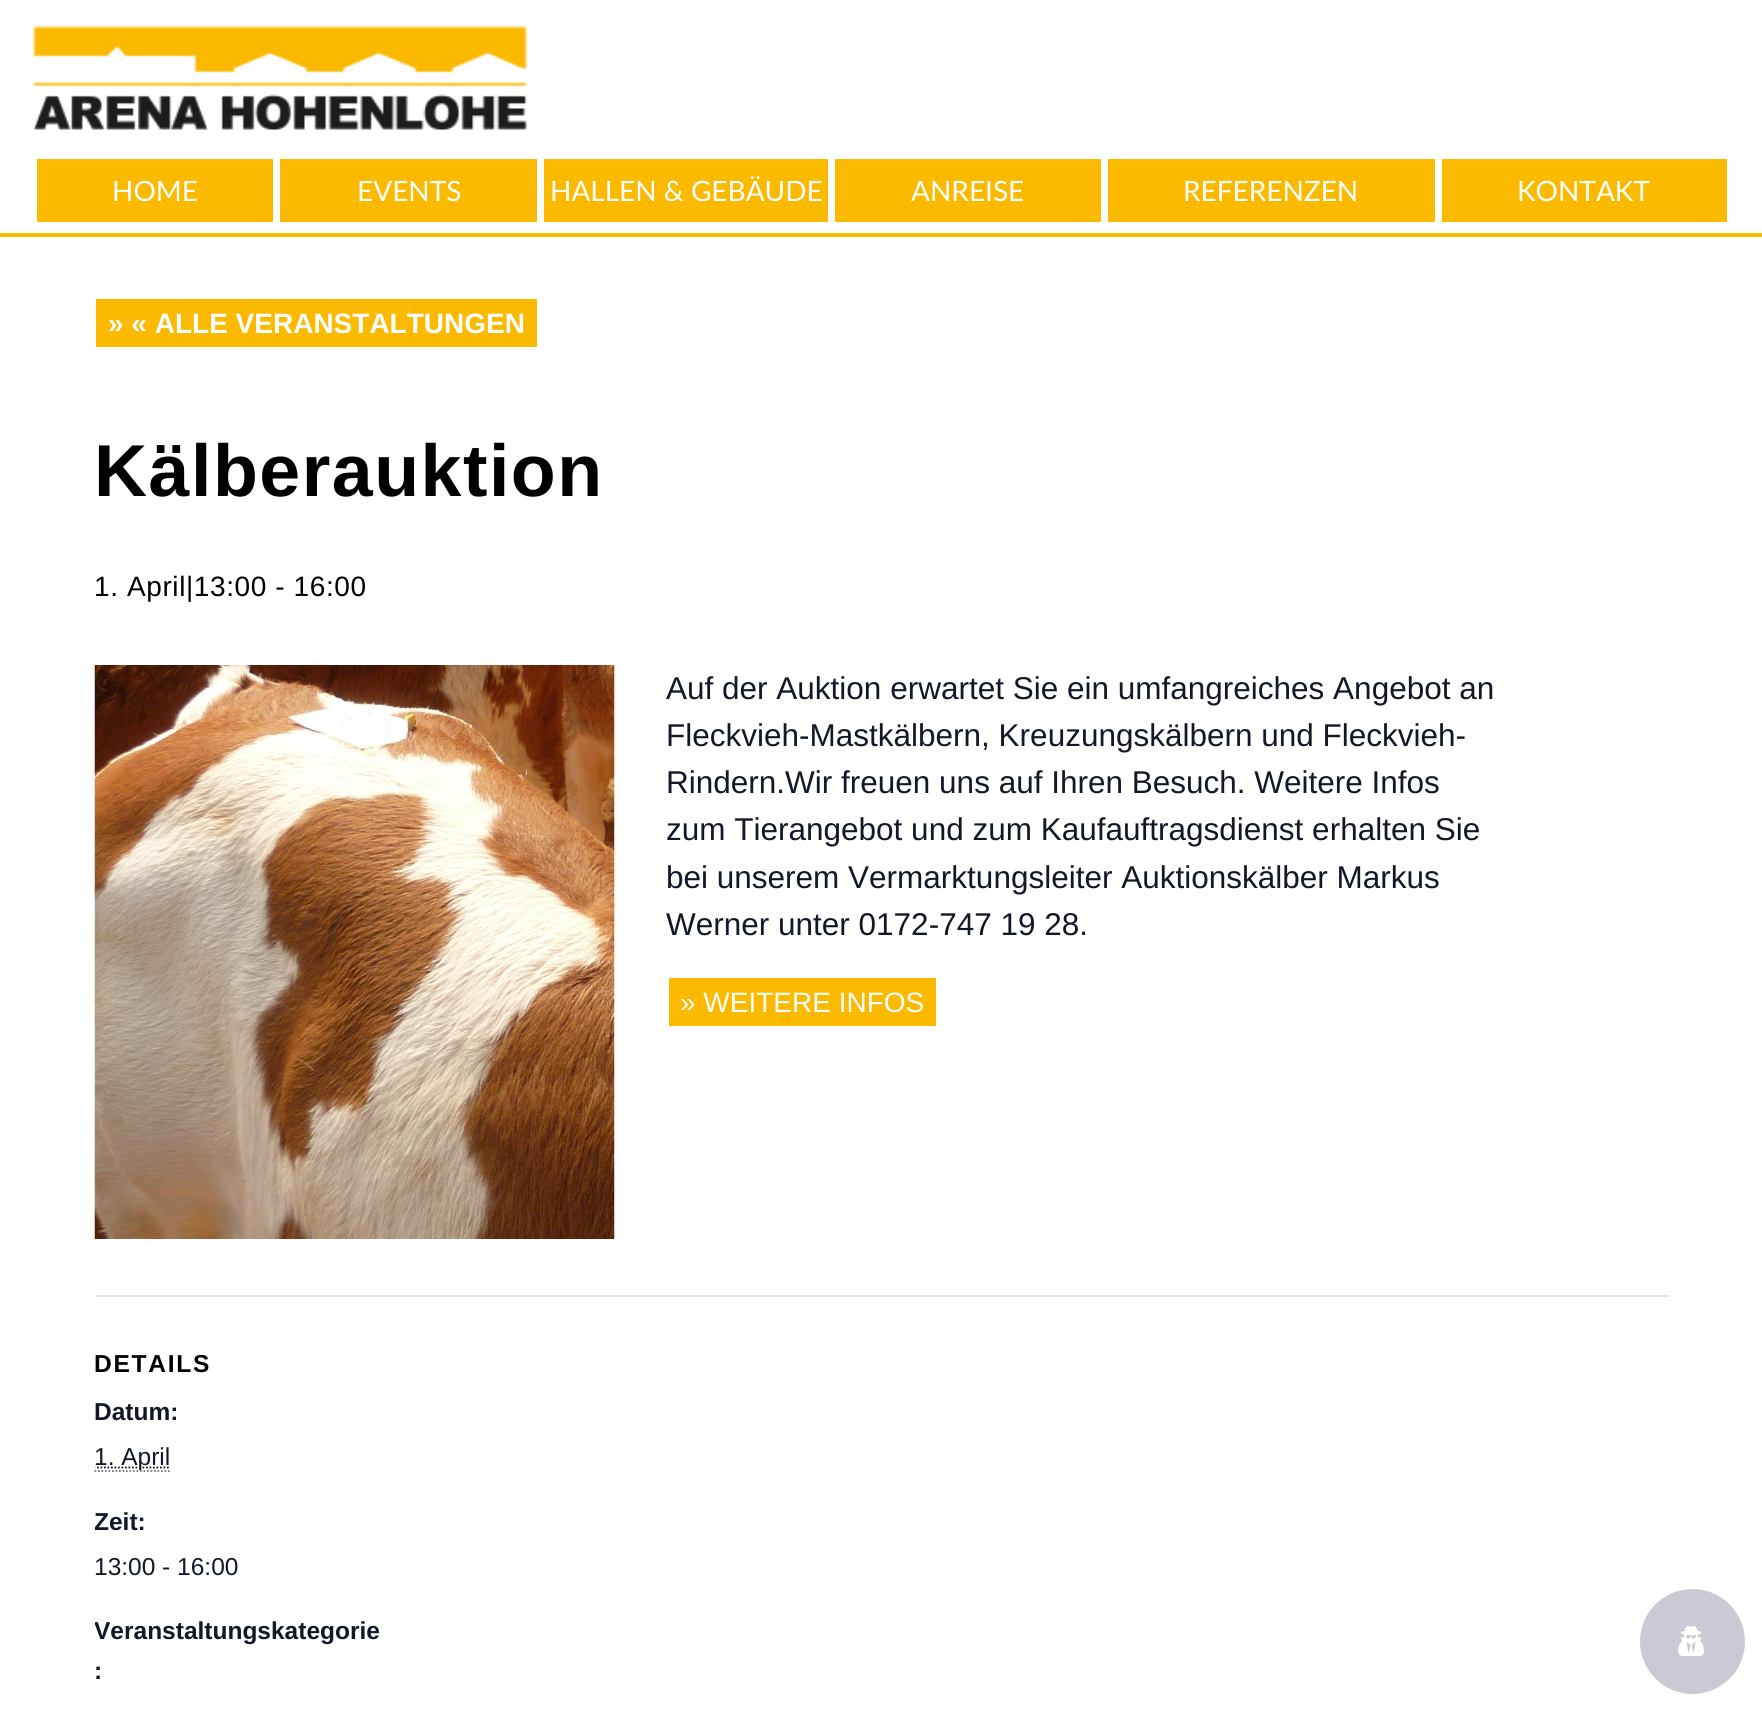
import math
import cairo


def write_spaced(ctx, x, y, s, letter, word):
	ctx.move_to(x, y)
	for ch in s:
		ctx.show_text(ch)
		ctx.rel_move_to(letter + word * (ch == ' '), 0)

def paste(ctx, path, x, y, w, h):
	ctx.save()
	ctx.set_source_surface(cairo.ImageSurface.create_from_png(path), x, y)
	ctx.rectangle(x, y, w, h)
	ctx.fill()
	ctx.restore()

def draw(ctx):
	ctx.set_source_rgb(1, 1, 1)
	ctx.paint()
	ctx.set_source_rgb(0.984, 0.725, 0)
	ctx.rectangle(0, 233, 1762, 4)
	ctx.fill()
	paste(ctx, 'media/1.png', 32, 26, 495, 104)
	ctx.rectangle(37, 159, 236, 63)
	ctx.fill()
	ctx.select_font_face('Lato')
	ctx.set_font_size(28)
	ctx.set_source_rgb(1, 1, 1)
	ctx.move_to(112, 201)
	ctx.show_text('HOME')
	ctx.set_source_rgb(0.984, 0.725, 0)
	ctx.rectangle(280, 159, 257, 63)
	ctx.fill()
	ctx.set_source_rgb(1, 1, 1)
	ctx.move_to(357, 201)
	ctx.show_text('EVENTS')
	ctx.set_source_rgb(0.984, 0.725, 0)
	ctx.rectangle(544, 159, 284, 63)
	ctx.fill()
	ctx.set_source_rgb(1, 1, 1)
	ctx.move_to(550, 201)
	ctx.show_text('HALLEN & GEBÄUDE')
	ctx.set_source_rgb(0.984, 0.725, 0)
	ctx.rectangle(835, 159, 266, 63)
	ctx.fill()
	ctx.set_source_rgb(1, 1, 1)
	ctx.move_to(911, 201)
	ctx.show_text('ANREISE')
	ctx.set_source_rgb(0.984, 0.725, 0)
	ctx.rectangle(1108, 159, 327, 63)
	ctx.fill()
	ctx.set_source_rgb(1, 1, 1)
	ctx.move_to(1183, 201)
	ctx.show_text('REFERENZEN')
	ctx.set_source_rgb(0.984, 0.725, 0)
	ctx.rectangle(1442, 159, 285, 63)
	ctx.fill()
	ctx.set_source_rgb(1, 1, 1)
	ctx.move_to(1517, 201)
	ctx.show_text('KONTAKT')
	ctx.set_source_rgb(0.984, 0.725, 0)
	ctx.rectangle(96, 299, 441, 48)
	ctx.fill()
	ctx.select_font_face('Liberation Sans', cairo.FONT_SLANT_NORMAL, cairo.FONT_WEIGHT_BOLD)
	ctx.set_source_rgb(1, 1, 1)
	ctx.move_to(108, 333)
	ctx.show_text('» « ALLE VERANSTALTUNGEN')
	ctx.set_font_size(73.5)
	ctx.set_source_rgb(0, 0, 0)
	write_spaced(ctx, 94, 496, 'Kälberauktion', 1.5, 0)
	ctx.select_font_face('Liberation Sans')
	ctx.set_font_size(28)
	write_spaced(ctx, 94, 596, '1. April|13:00 - 16:00', 0.6, 0)
	paste(ctx, 'media/2.png', 94, 665, 521, 574)
	ctx.set_font_size(31.5)
	ctx.set_source_rgb(0.078, 0.094, 0.153)
	for x, y, s in [
		(666, 699, 'Auf der Auktion erwartet Sie ein umfangreiches Angebot an'),
		(666, 746, 'Fleckvieh-Mastkälbern, Kreuzungskälbern und Fleckvieh-'),
		(666, 793, 'Rindern.Wir freuen uns auf Ihren Besuch. Weitere Infos'),
		(666, 840, 'zum Tierangebot und zum Kaufauftragsdienst erhalten Sie'),
		(666, 888, 'bei unserem Vermarktungsleiter Auktionskälber Markus'),
		(666, 935, 'Werner unter 0172-747 19 28.'),
	]:
		ctx.move_to(x, y)
		ctx.show_text(s)
	ctx.set_source_rgb(0.984, 0.725, 0)
	ctx.rectangle(669, 978, 267, 48)
	ctx.fill()
	ctx.set_font_size(28)
	ctx.set_source_rgb(1, 1, 1)
	ctx.move_to(680, 1012)
	ctx.show_text('» WEITERE INFOS')
	ctx.set_source_rgb(0.894, 0.894, 0.894)
	ctx.rectangle(95, 1295, 1575, 2)
	ctx.fill()
	ctx.select_font_face('Liberation Sans', cairo.FONT_SLANT_NORMAL, cairo.FONT_WEIGHT_BOLD)
	ctx.set_font_size(24.5)
	ctx.set_source_rgb(0, 0, 0)
	write_spaced(ctx, 94, 1372, 'DETAILS', 1.75, 0)
	ctx.set_source_rgb(0.078, 0.094, 0.153)
	ctx.move_to(94, 1420)
	ctx.show_text('Datum:')
	ctx.new_path()
	ctx.move_to(94.5, 1471)
	ctx.line_to(170, 1471)
	ctx.set_source_rgb(0.467, 0.467, 0.467)
	ctx.set_line_width(1.8)
	ctx.set_dash([1.75, 1.75])
	ctx.stroke()
	ctx.save()
	ctx.rectangle(95, 665, 1575, 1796)
	ctx.clip()
	ctx.new_path()
	ctx.move_to(93.5, 1467.5)
	ctx.line_to(170, 1467.5)
	ctx.set_source_rgb(0.078, 0.094, 0.153)
	ctx.stroke()
	ctx.restore()
	ctx.select_font_face('Liberation Sans')
	ctx.set_source_rgb(0.078, 0.094, 0.153)
	ctx.move_to(94, 1465)
	ctx.show_text('1. April')
	ctx.save()
	ctx.rectangle(95, 665, 1575, 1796)
	ctx.clip()
	ctx.select_font_face('Liberation Sans', cairo.FONT_SLANT_NORMAL, cairo.FONT_WEIGHT_BOLD)
	ctx.move_to(94, 1530)
	ctx.show_text('Zeit:')
	ctx.restore()
	ctx.move_to(94, 1575)
	ctx.show_text('13:00 - 16:00')
	ctx.save()
	ctx.rectangle(95, 665, 1575, 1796)
	ctx.clip()
	ctx.select_font_face('Liberation Sans', cairo.FONT_SLANT_NORMAL, cairo.FONT_WEIGHT_BOLD)
	ctx.move_to(94, 1639)
	ctx.show_text('Veranstaltungskategorie')
	ctx.restore()
	ctx.select_font_face('Liberation Sans', cairo.FONT_SLANT_NORMAL, cairo.FONT_WEIGHT_BOLD)
	ctx.move_to(94, 1679)
	ctx.show_text(':')
	ctx.set_source_rgb(0.792, 0.792, 0.831)
	ctx.new_path()
	ctx.arc(1692.5, 1641.5, 52.5, 0, 2 * math.pi)
	ctx.fill()
	paste(ctx, 'media/3.png', 1678, 1625, 26, 31)


surface = cairo.ImageSurface(cairo.FORMAT_RGB24, 1762, 1710)
ctx = cairo.Context(surface)
options = cairo.FontOptions()
options.set_hint_metrics(cairo.HINT_METRICS_OFF)
options.set_hint_style(cairo.HINT_STYLE_NONE)
ctx.set_font_options(options)
ctx.set_miter_limit(4)
draw(ctx)
surface.write_to_png('image.png')
